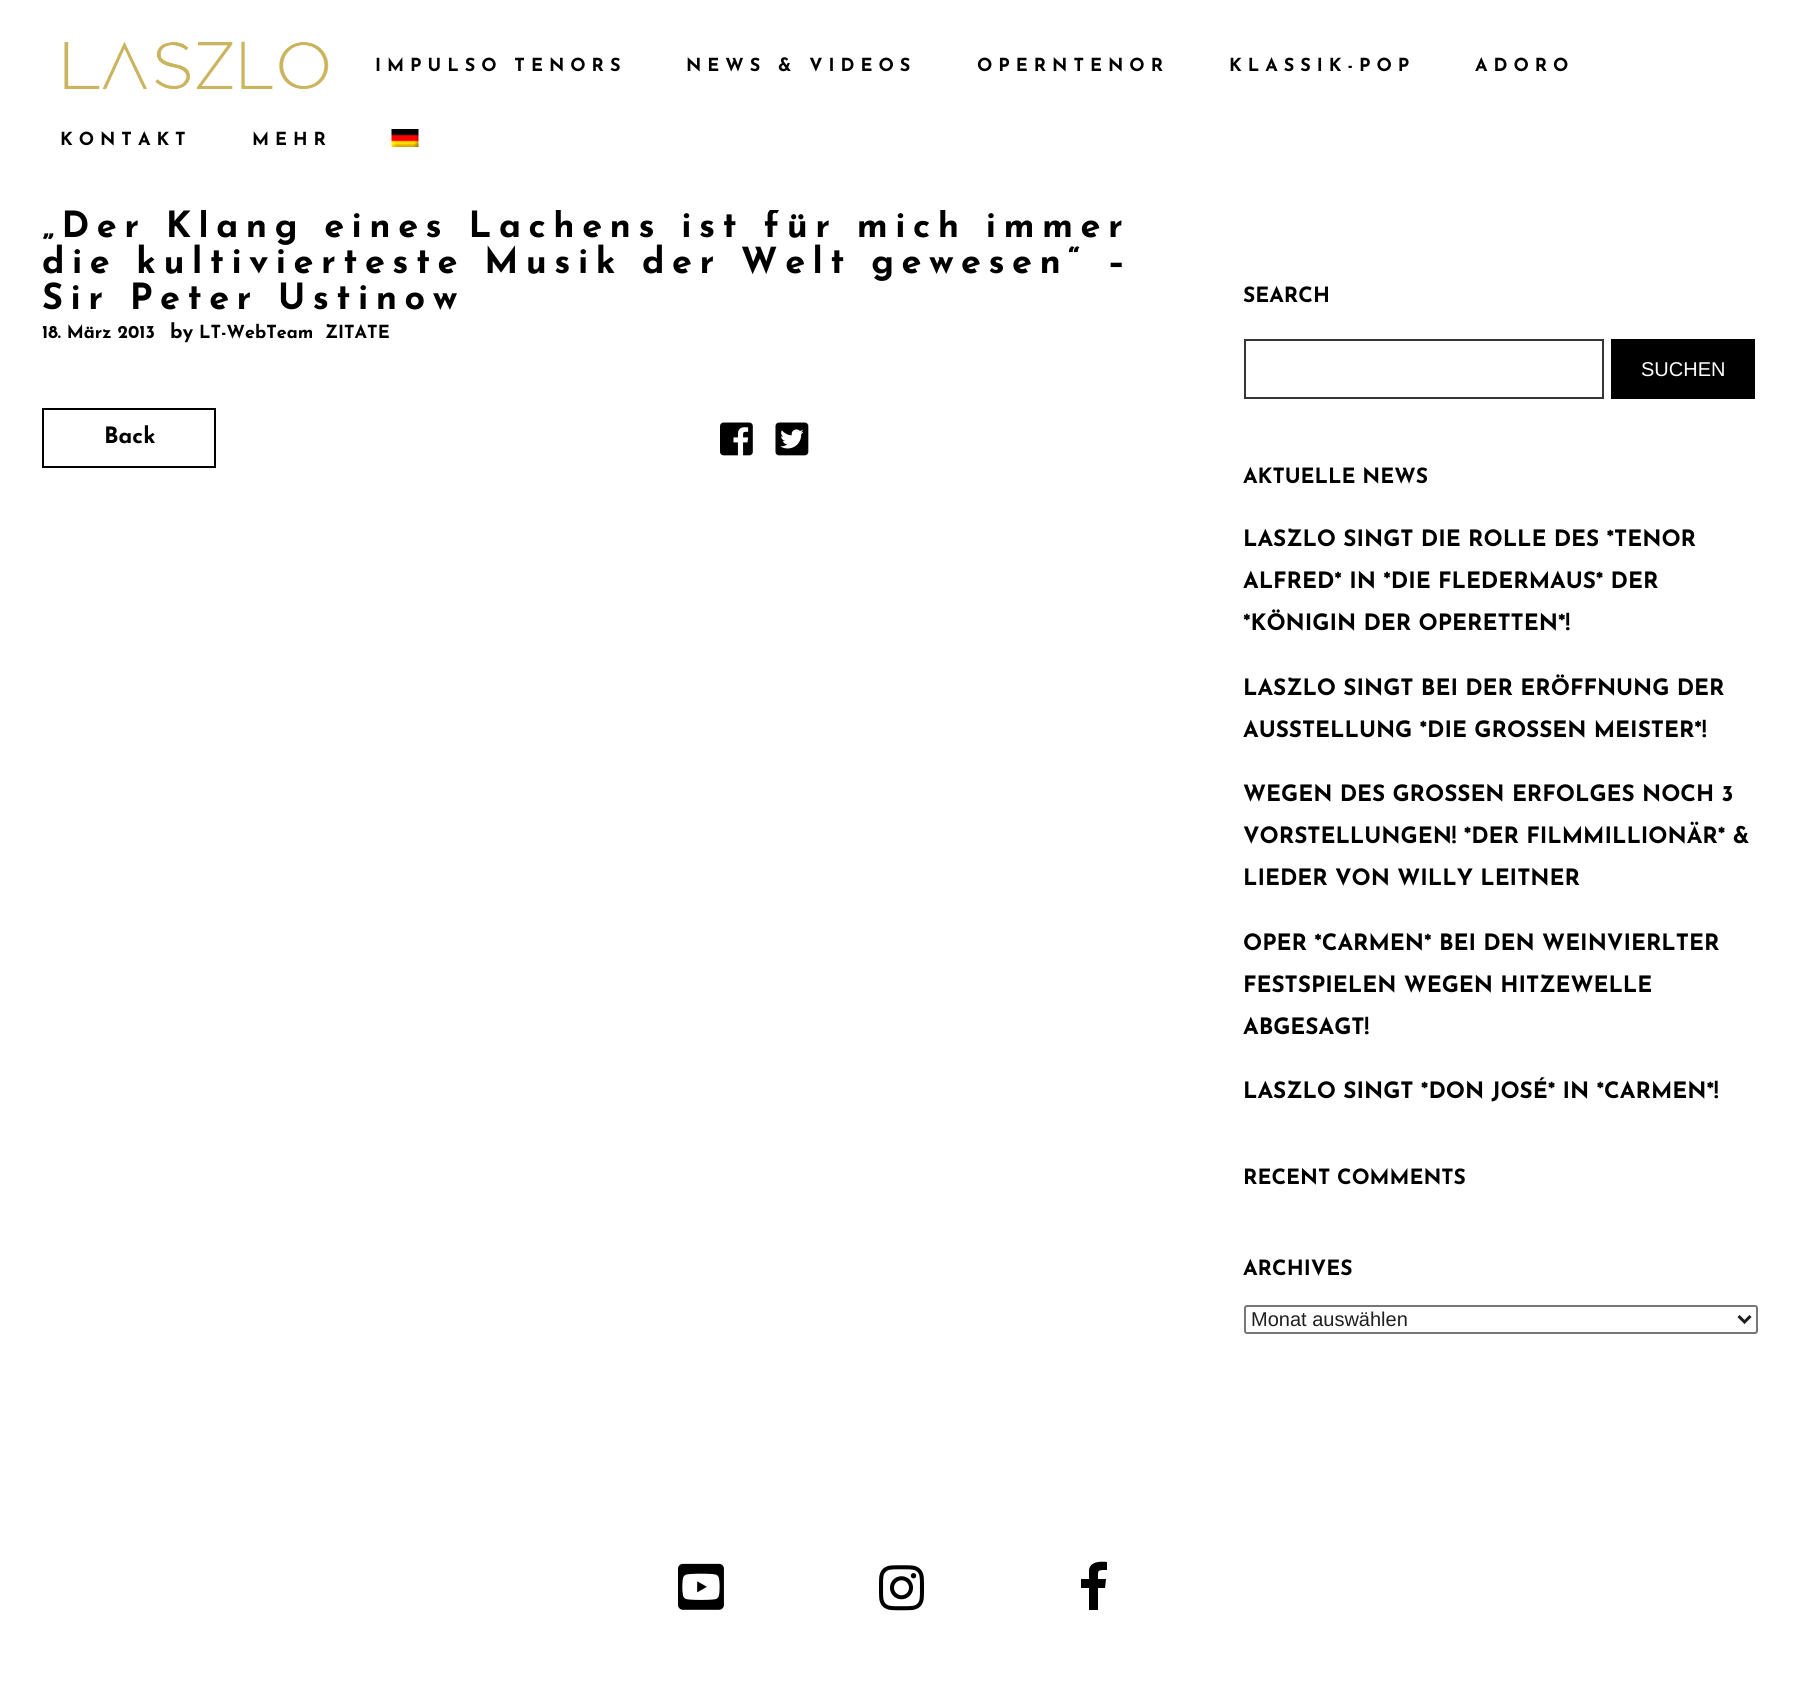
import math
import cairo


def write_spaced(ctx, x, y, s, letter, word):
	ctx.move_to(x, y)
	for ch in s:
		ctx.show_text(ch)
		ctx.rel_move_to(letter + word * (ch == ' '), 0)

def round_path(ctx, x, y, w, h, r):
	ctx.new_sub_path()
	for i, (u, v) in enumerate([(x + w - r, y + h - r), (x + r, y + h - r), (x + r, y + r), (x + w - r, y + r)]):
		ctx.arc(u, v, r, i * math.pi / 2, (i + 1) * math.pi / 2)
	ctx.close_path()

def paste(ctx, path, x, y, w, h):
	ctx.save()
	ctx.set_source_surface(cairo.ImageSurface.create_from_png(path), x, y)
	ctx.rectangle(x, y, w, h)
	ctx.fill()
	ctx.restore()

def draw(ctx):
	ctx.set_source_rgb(1, 1, 1)
	ctx.paint()
	paste(ctx, 'media/1.png', 64, 41, 265, 49)
	ctx.select_font_face('Josefin Sans', cairo.FONT_SLANT_NORMAL, cairo.FONT_WEIGHT_BOLD)
	ctx.set_font_size(18)
	ctx.set_source_rgb(0, 0, 0)
	for x, y, s in [
		(375, 71, 'IMPULSO TENORS'),
		(686, 71, 'NEWS & VIDEOS'),
		(977, 71, 'OPERNTENOR'),
		(1229, 71, 'KLASSIK-POP'),
		(1475, 71, 'ADORO'),
		(60, 145, 'KONTAKT'),
		(252, 145, 'MEHR'),
	]:
		write_spaced(ctx, x, y, s, 6, 0)
	paste(ctx, 'media/2.png', 391, 129, 28, 18)
	ctx.save()
	ctx.rectangle(42, 210, 1116, 161)
	ctx.clip()
	ctx.set_font_size(36)
	write_spaced(ctx, 42, 237, '„Der Klang eines Lachens ist für mich immer', 7.5, 0)
	ctx.restore()
	ctx.set_font_size(36)
	write_spaced(ctx, 42, 273, 'die kultivierteste Musik der Welt gewesen“ –', 7.5, 0)
	write_spaced(ctx, 42, 309, 'Sir Peter Ustinow', 7.5, 0)
	ctx.set_font_size(18)
	ctx.move_to(42, 338)
	ctx.show_text('18. März 2013')
	ctx.set_font_size(20)
	ctx.move_to(170, 338)
	ctx.show_text('by')
	ctx.set_font_size(18)
	ctx.move_to(199, 338)
	ctx.show_text('LT-WebTeam')
	ctx.move_to(325, 338)
	ctx.show_text('ZITATE')
	ctx.rectangle(43, 409, 172, 58)
	ctx.stroke()
	ctx.set_font_size(22.5)
	ctx.move_to(104, 443)
	ctx.show_text('Back')
	paste(ctx, 'media/3.png', 720, 422, 33, 34)
	paste(ctx, 'media/4.png', 775, 422, 34, 34)
	ctx.set_font_size(21)
	ctx.move_to(1243, 302)
	ctx.show_text('SEARCH')
	ctx.rectangle(1245, 340, 358, 58)
	ctx.set_source_rgb(0.208, 0.208, 0.208)
	ctx.stroke()
	ctx.set_source_rgb(0, 0, 0)
	ctx.rectangle(1611, 339, 144, 60)
	ctx.fill()
	ctx.select_font_face('Liberation Sans')
	ctx.set_font_size(20)
	ctx.set_source_rgb(1, 1, 1)
	ctx.move_to(1641, 376)
	ctx.show_text('SUCHEN')
	ctx.select_font_face('Josefin Sans', cairo.FONT_SLANT_NORMAL, cairo.FONT_WEIGHT_BOLD)
	ctx.set_font_size(21)
	ctx.set_source_rgb(0, 0, 0)
	ctx.move_to(1243, 483)
	ctx.show_text('AKTUELLE NEWS')
	ctx.set_font_size(22.5)
	for x, y, s in [
		(1243, 546, 'LASZLO SINGT DIE ROLLE DES *TENOR'),
		(1243, 588, 'ALFRED* IN *DIE FLEDERMAUS* DER'),
		(1243, 630, '*KÖNIGIN DER OPERETTEN*!'),
		(1243, 695, 'LASZLO SINGT BEI DER ERÖFFNUNG DER'),
		(1243, 737, 'AUSSTELLUNG *DIE GROSSEN MEISTER*!'),
		(1243, 801, 'WEGEN DES GROSSEN ERFOLGES NOCH 3'),
		(1243, 843, 'VORSTELLUNGEN! *DER FILMMILLIONÄR* &'),
		(1243, 885, 'LIEDER VON WILLY LEITNER'),
		(1243, 950, 'OPER *CARMEN* BEI DEN WEINVIERLTER'),
		(1243, 992, 'FESTSPIELEN WEGEN HITZEWELLE'),
		(1243, 1034, 'ABGESAGT!'),
		(1243, 1098, 'LASZLO SINGT *DON JOSÉ* IN *CARMEN*!'),
	]:
		ctx.move_to(x, y)
		ctx.show_text(s)
	ctx.set_font_size(21)
	ctx.move_to(1243, 1184)
	ctx.show_text('RECENT COMMENTS')
	ctx.move_to(1243, 1275)
	ctx.show_text('ARCHIVES')
	round_path(ctx, 1245, 1306, 512, 27, 2)
	ctx.set_source_rgb(0.463, 0.463, 0.463)
	ctx.stroke()
	ctx.new_path()
	ctx.move_to(1738.5, 1316)
	ctx.line_to(1744.5, 1322)
	ctx.line_to(1750.5, 1316)
	ctx.set_source_rgb(0.122, 0.122, 0.122)
	ctx.set_line_width(3)
	ctx.stroke()
	ctx.select_font_face('Liberation Sans')
	ctx.set_font_size(20)
	ctx.move_to(1251, 1326)
	ctx.show_text('Monat auswählen')
	paste(ctx, 'media/5.png', 678, 1563, 46, 47)
	paste(ctx, 'media/6.png', 879, 1565, 45, 46)
	ctx.set_source_rgb(0, 0, 0)
	ctx.new_path()
	ctx.move_to(1107, 1562)
	ctx.curve_to(1099, 1561, 1090, 1562, 1089, 1570)
	ctx.line_to(1089, 1579)
	ctx.line_to(1081, 1579)
	ctx.line_to(1081, 1588)
	ctx.line_to(1089, 1588)
	ctx.line_to(1089, 1610)
	ctx.line_to(1098, 1610)
	ctx.line_to(1098, 1588)
	ctx.line_to(1105, 1588)
	ctx.line_to(1106, 1579)
	ctx.line_to(1098, 1579)
	ctx.curve_to(1098, 1570, 1097, 1570, 1107, 1570)
	ctx.close_path()
	ctx.fill()


surface = cairo.ImageSurface(cairo.FORMAT_RGB24, 1799, 1694)
ctx = cairo.Context(surface)
options = cairo.FontOptions()
options.set_hint_metrics(cairo.HINT_METRICS_OFF)
options.set_hint_style(cairo.HINT_STYLE_NONE)
ctx.set_font_options(options)
ctx.set_miter_limit(4)
draw(ctx)
surface.write_to_png('image.png')
